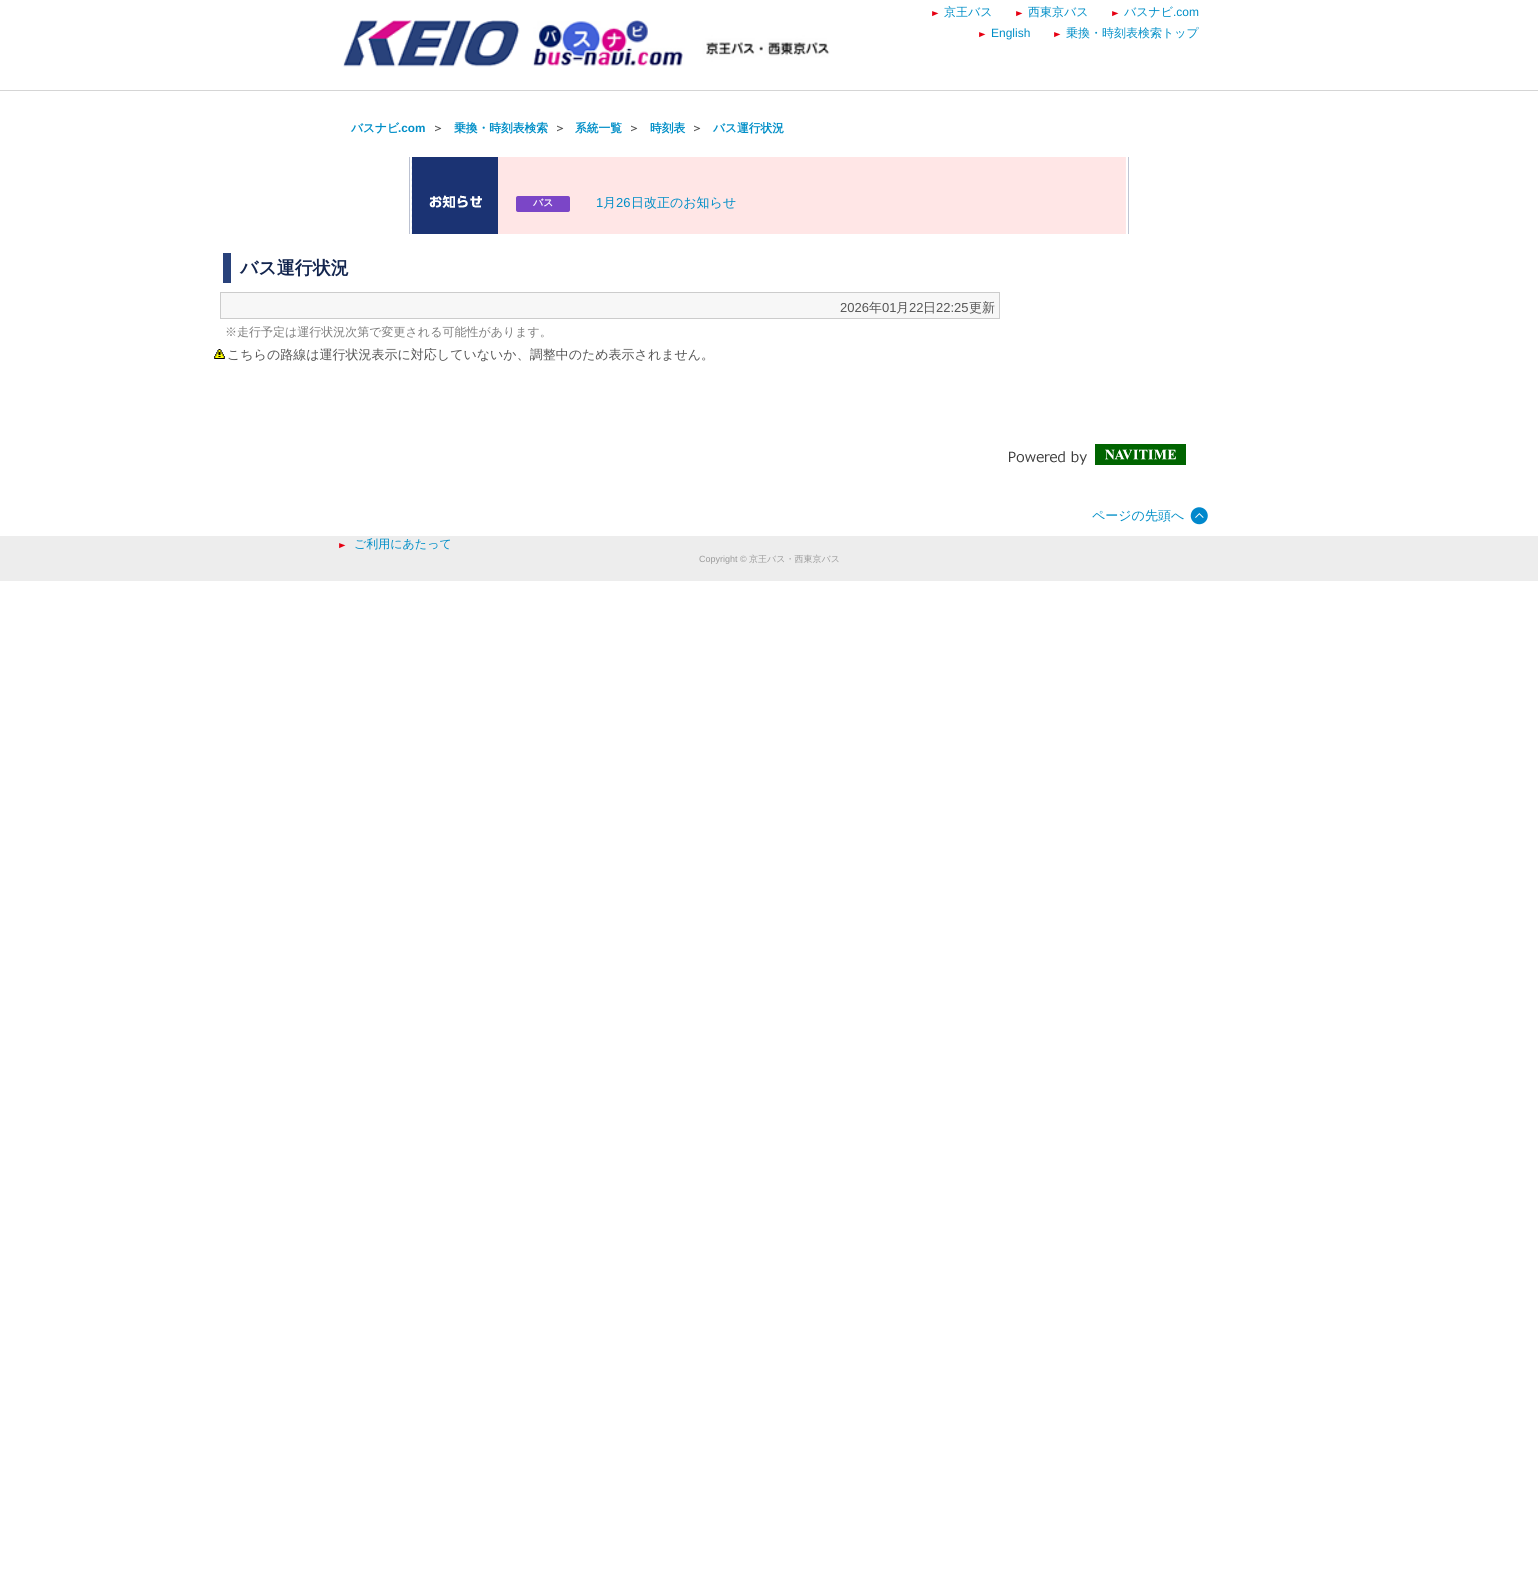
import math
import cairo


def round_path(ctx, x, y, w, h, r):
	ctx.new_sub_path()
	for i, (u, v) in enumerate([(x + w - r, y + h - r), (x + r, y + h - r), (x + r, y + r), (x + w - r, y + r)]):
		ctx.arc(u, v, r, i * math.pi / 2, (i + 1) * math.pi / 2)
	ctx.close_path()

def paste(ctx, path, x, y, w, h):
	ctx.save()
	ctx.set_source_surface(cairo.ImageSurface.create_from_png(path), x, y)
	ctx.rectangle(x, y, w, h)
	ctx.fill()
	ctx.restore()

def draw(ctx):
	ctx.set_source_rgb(1, 1, 1)
	ctx.paint()
	ctx.set_source_rgb(0.835, 0.835, 0.835)
	ctx.rectangle(0, 90, 1538, 1)
	ctx.fill()
	paste(ctx, 'media/1.png', 343, 20, 487, 47)
	paste(ctx, 'media/2.png', 932, 11, 7, 6)
	ctx.select_font_face('WenQuanYi Zen Hei Medium')
	ctx.set_font_size(12)
	ctx.set_source_rgb(0, 0.557, 0.78)
	ctx.move_to(944, 16)
	ctx.show_text('京王バス')
	paste(ctx, 'media/2.png', 1016, 11, 7, 6)
	ctx.move_to(1028, 16)
	ctx.show_text('西東京バス')
	paste(ctx, 'media/2.png', 1112, 11, 7, 6)
	ctx.move_to(1124, 16)
	ctx.show_text('バスナビ')
	ctx.select_font_face('Liberation Sans')
	ctx.move_to(1173, 16)
	ctx.show_text('.com')
	paste(ctx, 'media/2.png', 979, 32, 7, 6)
	ctx.move_to(991, 37)
	ctx.show_text('English')
	paste(ctx, 'media/2.png', 1054, 32, 7, 6)
	ctx.select_font_face('WenQuanYi Zen Hei Medium')
	ctx.move_to(1066, 37)
	ctx.show_text('乗換・時刻表検索トップ')
	ctx.select_font_face('WenQuanYi Zen Hei', cairo.FONT_SLANT_NORMAL, cairo.FONT_WEIGHT_BOLD)
	ctx.set_font_size(11.75)
	ctx.move_to(351, 132)
	ctx.show_text('バスナビ')
	ctx.select_font_face('Liberation Sans', cairo.FONT_SLANT_NORMAL, cairo.FONT_WEIGHT_BOLD)
	ctx.move_to(398, 132)
	ctx.show_text('.com')
	ctx.select_font_face('WenQuanYi Zen Hei', cairo.FONT_SLANT_NORMAL, cairo.FONT_WEIGHT_BOLD)
	ctx.set_source_rgb(0.333, 0.333, 0.333)
	ctx.move_to(432, 132)
	ctx.show_text('＞')
	ctx.set_source_rgb(0, 0.557, 0.78)
	ctx.move_to(454, 132)
	ctx.show_text('乗換・時刻表検索')
	ctx.set_source_rgb(0.333, 0.333, 0.333)
	ctx.move_to(554, 132)
	ctx.show_text('＞')
	ctx.set_source_rgb(0, 0.557, 0.78)
	ctx.move_to(575, 132)
	ctx.show_text('系統一覧')
	ctx.set_source_rgb(0.333, 0.333, 0.333)
	ctx.move_to(628, 132)
	ctx.show_text('＞')
	ctx.set_source_rgb(0, 0.557, 0.78)
	ctx.move_to(650, 132)
	ctx.show_text('時刻表')
	ctx.set_source_rgb(0.333, 0.333, 0.333)
	ctx.move_to(691, 132)
	ctx.show_text('＞')
	ctx.set_source_rgb(0, 0.557, 0.78)
	ctx.move_to(713, 132)
	ctx.show_text('バス運行状況')
	paste(ctx, 'media/3.png', 409, 157, 720, 77)
	paste(ctx, 'media/4.png', 429, 195, 53, 13)
	ctx.set_source_rgb(0.482, 0.275, 0.78)
	round_path(ctx, 516, 196, 54, 16, 2)
	ctx.fill()
	ctx.set_font_size(10)
	ctx.set_source_rgb(1, 1, 1)
	ctx.move_to(533, 206)
	ctx.show_text('バス')
	ctx.select_font_face('Liberation Sans')
	ctx.set_font_size(13)
	ctx.set_source_rgb(0, 0.557, 0.78)
	ctx.move_to(596, 207)
	ctx.show_text('1')
	ctx.select_font_face('WenQuanYi Zen Hei Medium')
	ctx.move_to(603, 207)
	ctx.show_text('月')
	ctx.select_font_face('Liberation Sans')
	ctx.move_to(616, 207)
	ctx.show_text('26')
	ctx.select_font_face('WenQuanYi Zen Hei Medium')
	ctx.move_to(631, 207)
	ctx.show_text('日改正のお知らせ')
	ctx.set_source_rgb(0.161, 0.259, 0.482)
	ctx.rectangle(223, 253, 8, 30)
	ctx.fill()
	ctx.select_font_face('WenQuanYi Zen Hei', cairo.FONT_SLANT_NORMAL, cairo.FONT_WEIGHT_BOLD)
	ctx.set_font_size(18)
	ctx.set_source_rgb(0.075, 0.145, 0.306)
	ctx.move_to(240, 274)
	ctx.show_text('バス運行状況')
	ctx.set_source_rgb(0.965, 0.965, 0.965)
	ctx.rectangle(220.5, 292.5, 779, 26)
	ctx.fill_preserve()
	ctx.set_source_rgb(0.8, 0.8, 0.8)
	ctx.set_line_width(1)
	ctx.stroke()
	ctx.select_font_face('Liberation Sans')
	ctx.set_font_size(13)
	ctx.set_source_rgb(0.333, 0.333, 0.333)
	ctx.move_to(840, 312)
	ctx.show_text('2026')
	ctx.select_font_face('WenQuanYi Zen Hei Medium')
	ctx.move_to(869, 312)
	ctx.show_text('年')
	ctx.select_font_face('Liberation Sans')
	ctx.move_to(882, 312)
	ctx.show_text('01')
	ctx.select_font_face('WenQuanYi Zen Hei Medium')
	ctx.move_to(896, 312)
	ctx.show_text('月')
	ctx.select_font_face('Liberation Sans')
	ctx.move_to(909, 312)
	ctx.show_text('22')
	ctx.select_font_face('WenQuanYi Zen Hei Medium')
	ctx.move_to(923, 312)
	ctx.show_text('日')
	ctx.select_font_face('Liberation Sans')
	ctx.move_to(936, 312)
	ctx.show_text('22:25')
	ctx.select_font_face('WenQuanYi Zen Hei Medium')
	ctx.move_to(969, 312)
	ctx.show_text('更新')
	ctx.set_font_size(12)
	ctx.set_source_rgb(0.494, 0.494, 0.494)
	ctx.move_to(225, 336)
	ctx.show_text('※走行予定は運行状況次第で変更される可能性があります。')
	paste(ctx, 'media/5.png', 214, 349, 11, 10)
	ctx.set_font_size(13)
	ctx.set_source_rgb(0.333, 0.333, 0.333)
	ctx.move_to(227, 359)
	ctx.show_text('こちらの路線は運行状況表示に対応していないか、調整中のため表示されません。')
	paste(ctx, 'media/6.png', 1009, 444, 177, 21)
	paste(ctx, 'media/7.png', 1190, 507, 18, 18)
	ctx.set_source_rgb(0, 0.557, 0.78)
	ctx.move_to(1092, 520)
	ctx.show_text('ページの先頭へ')
	ctx.set_source_rgb(0.929, 0.929, 0.929)
	ctx.rectangle(0, 536, 1538, 45)
	ctx.fill()
	paste(ctx, 'media/8.png', 339, 543, 7, 6)
	ctx.set_font_size(12)
	ctx.set_source_rgb(0, 0.557, 0.78)
	ctx.move_to(354, 548)
	ctx.show_text('ご利用にあたって')
	ctx.select_font_face('Liberation Sans')
	ctx.set_font_size(9)
	ctx.set_source_rgb(0.6, 0.6, 0.6)
	ctx.move_to(699, 562)
	ctx.show_text('Copyright ©')
	ctx.select_font_face('WenQuanYi Zen Hei Medium')
	ctx.move_to(749, 562)
	ctx.show_text('京王バス・西東京バス')


surface = cairo.ImageSurface(cairo.FORMAT_RGB24, 1538, 1588)
ctx = cairo.Context(surface)
options = cairo.FontOptions()
options.set_hint_metrics(cairo.HINT_METRICS_OFF)
options.set_hint_style(cairo.HINT_STYLE_NONE)
ctx.set_font_options(options)
ctx.set_miter_limit(4)
draw(ctx)
surface.write_to_png('image.png')
